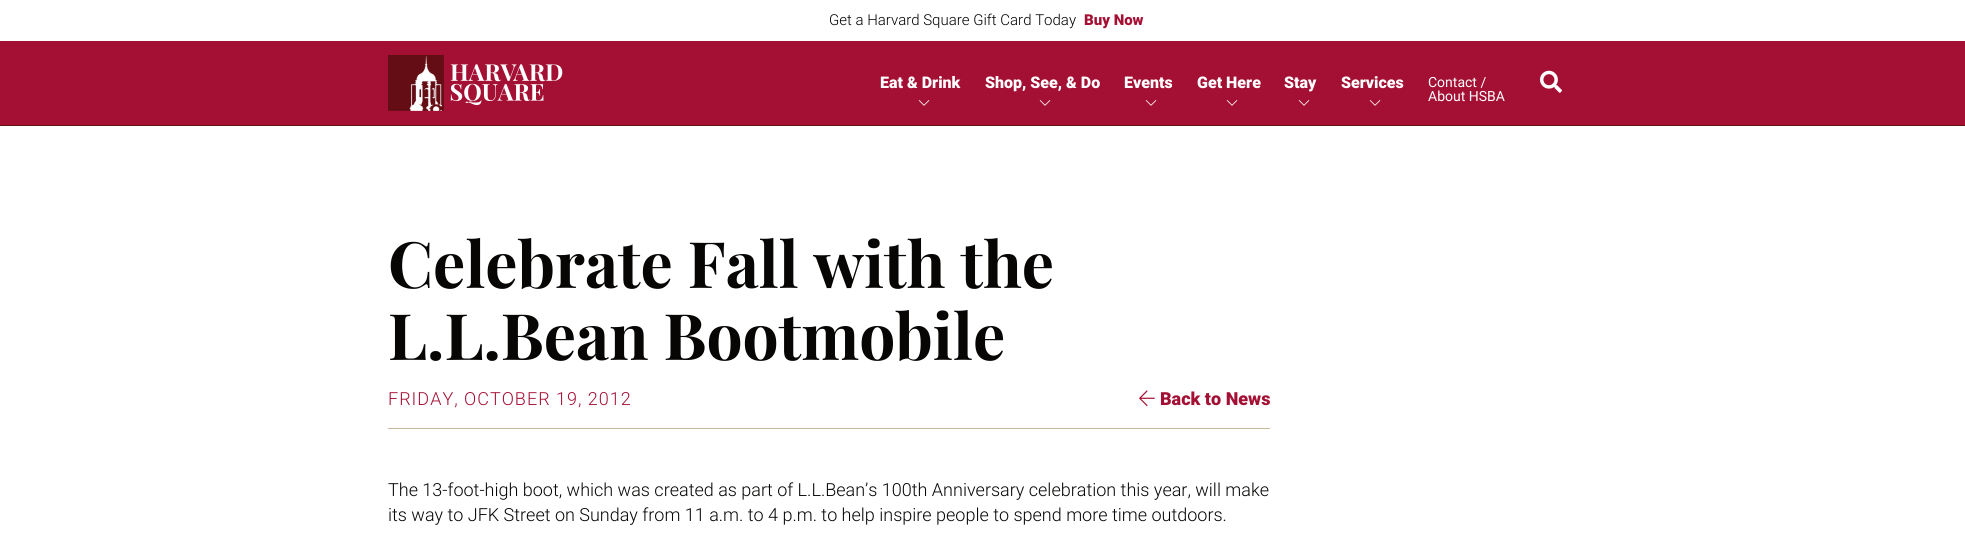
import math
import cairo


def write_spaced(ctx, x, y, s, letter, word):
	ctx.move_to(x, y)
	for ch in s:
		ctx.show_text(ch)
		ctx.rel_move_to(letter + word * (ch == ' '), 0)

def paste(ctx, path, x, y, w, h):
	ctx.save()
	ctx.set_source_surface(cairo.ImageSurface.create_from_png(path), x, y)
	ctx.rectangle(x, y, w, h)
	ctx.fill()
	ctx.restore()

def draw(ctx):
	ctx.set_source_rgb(1, 1, 1)
	ctx.paint()
	ctx.select_font_face('Roboto Light')
	ctx.set_font_size(15)
	ctx.set_source_rgb(0, 0, 0)
	ctx.move_to(829, 25)
	ctx.show_text('Get a Harvard Square Gift Card Today')
	ctx.select_font_face('Roboto Black')
	ctx.set_source_rgb(0.643, 0.063, 0.204)
	ctx.move_to(1084, 25)
	ctx.show_text('Buy Now')
	ctx.rectangle(0, 41, 1965, 84)
	ctx.fill()
	ctx.set_source_rgb(0.392, 0.051, 0.078)
	ctx.rectangle(0, 125, 1965, 1)
	ctx.fill()
	paste(ctx, 'media/1.png', 388, 55, 175, 56)
	ctx.set_font_size(16)
	ctx.set_source_rgb(1, 1, 1)
	ctx.move_to(880, 88)
	ctx.show_text('Eat & Drink')
	paste(ctx, 'media/2.png', 918, 100, 12, 6)
	ctx.move_to(985, 88)
	ctx.show_text('Shop, See, & Do')
	paste(ctx, 'media/2.png', 1039, 100, 12, 6)
	ctx.move_to(1124, 88)
	ctx.show_text('Events')
	paste(ctx, 'media/2.png', 1145, 100, 12, 6)
	ctx.move_to(1197, 88)
	ctx.show_text('Get Here')
	paste(ctx, 'media/2.png', 1226, 100, 12, 6)
	ctx.move_to(1284, 88)
	ctx.show_text('Stay')
	paste(ctx, 'media/2.png', 1298, 100, 12, 6)
	ctx.move_to(1341, 88)
	ctx.show_text('Services')
	paste(ctx, 'media/2.png', 1369, 100, 12, 6)
	ctx.select_font_face('Roboto')
	ctx.set_font_size(14)
	ctx.move_to(1428, 87)
	ctx.show_text('Contact /')
	ctx.move_to(1428, 101)
	ctx.show_text('About HSBA')
	paste(ctx, 'media/3.png', 1540, 70, 22, 23)
	ctx.set_source_rgb(0.788, 0.718, 0.612)
	ctx.rectangle(388, 428, 882, 1)
	ctx.fill()
	ctx.select_font_face('Playfair Display', cairo.FONT_SLANT_NORMAL, cairo.FONT_WEIGHT_BOLD)
	ctx.set_font_size(64)
	ctx.set_source_rgb(0.031, 0.027, 0.02)
	ctx.move_to(388, 288)
	ctx.show_text('Celebrate Fall with the')
	ctx.move_to(388, 360)
	ctx.show_text('L.L.Bean Bootmobile')
	ctx.select_font_face('Roboto Light')
	ctx.set_font_size(18)
	ctx.set_source_rgb(0.643, 0.063, 0.204)
	write_spaced(ctx, 388, 405, 'FRIDAY, OCTOBER 19, 2012', 1, 0)
	paste(ctx, 'media/4.png', 1139, 390, 16, 17)
	ctx.select_font_face('Roboto Black')
	ctx.move_to(1160, 405)
	ctx.show_text('Back to News')
	ctx.select_font_face('Roboto Light')
	ctx.set_source_rgb(0.031, 0.027, 0.02)
	ctx.move_to(388, 496)
	ctx.show_text('The 13-foot-high boot, which was created as part of L.L.Bean’s 100th Anniversary celebration this year, will make')
	ctx.move_to(388, 521)
	ctx.show_text('its way to JFK Street on Sunday from 11 a.m. to 4 p.m. to help inspire people to spend more time outdoors.')


surface = cairo.ImageSurface(cairo.FORMAT_RGB24, 1965, 538)
ctx = cairo.Context(surface)
options = cairo.FontOptions()
options.set_hint_metrics(cairo.HINT_METRICS_OFF)
options.set_hint_style(cairo.HINT_STYLE_NONE)
ctx.set_font_options(options)
ctx.set_miter_limit(4)
draw(ctx)
surface.write_to_png('image.png')
